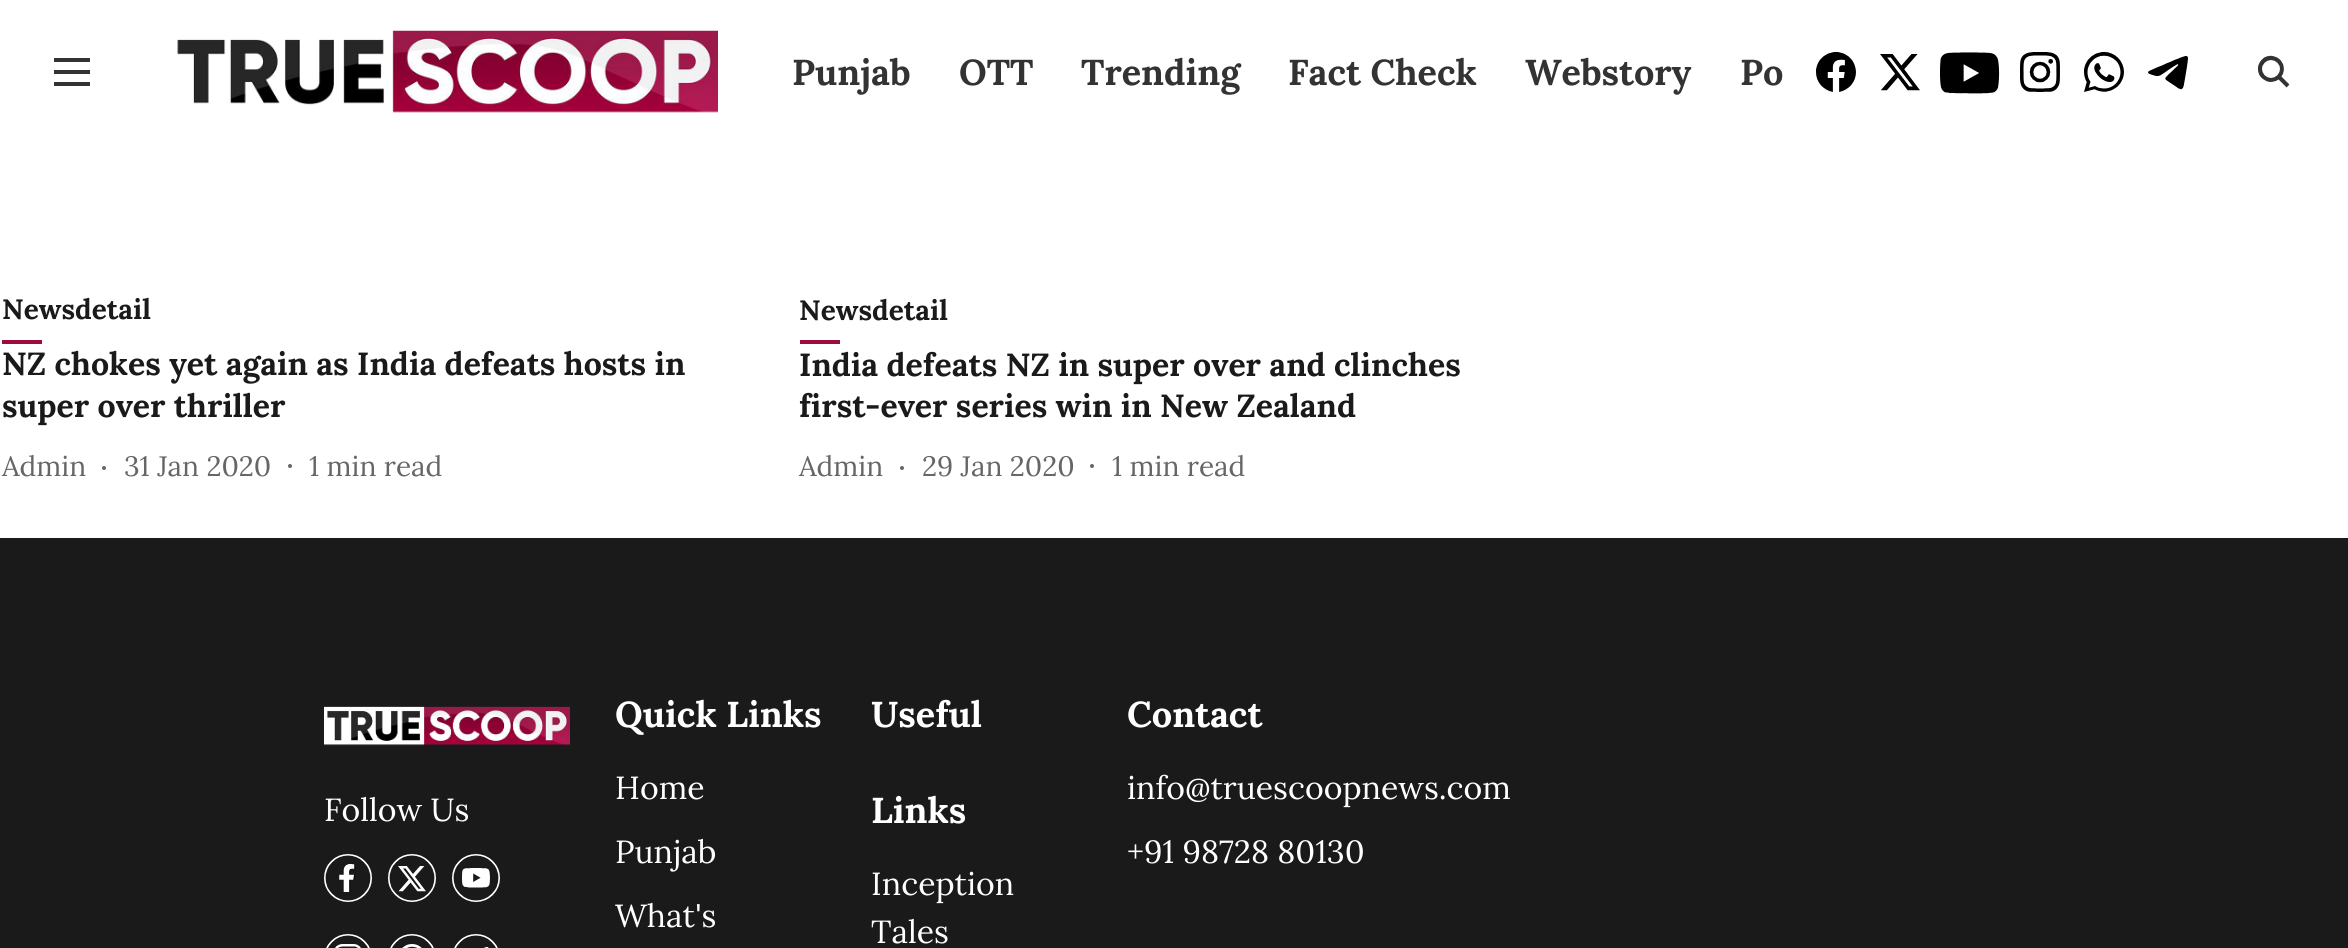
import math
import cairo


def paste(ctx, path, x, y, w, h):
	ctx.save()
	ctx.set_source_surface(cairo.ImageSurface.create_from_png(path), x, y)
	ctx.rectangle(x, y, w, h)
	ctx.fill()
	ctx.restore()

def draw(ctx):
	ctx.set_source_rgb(1, 1, 1)
	ctx.paint()
	paste(ctx, 'media/1.png', 54, 58, 36, 28)
	paste(ctx, 'media/2.png', 177, 30, 541, 83)
	ctx.select_font_face('Lora', cairo.FONT_SLANT_NORMAL, cairo.FONT_WEIGHT_BOLD)
	ctx.set_font_size(36)
	ctx.set_source_rgb(0.2, 0.2, 0.2)
	for x, y, s in [
		(792, 85, 'Punjab'),
		(959, 85, 'OTT'),
		(1081, 85, 'Trending'),
		(1288, 85, 'Fact Check'),
		(1525, 85, 'Webstory'),
		(1740, 85, 'Po'),
	]:
		ctx.move_to(x, y)
		ctx.show_text(s)
	paste(ctx, 'media/3.png', 1816, 52, 40, 40)
	paste(ctx, 'media/4.png', 1880, 54, 40, 37)
	paste(ctx, 'media/5.png', 1940, 52, 60, 42)
	paste(ctx, 'media/6.png', 2020, 52, 40, 40)
	paste(ctx, 'media/7.png', 2084, 52, 40, 40)
	paste(ctx, 'media/8.png', 2148, 56, 40, 34)
	paste(ctx, 'media/9.png', 2257, 55, 33, 33)
	ctx.set_font_size(28)
	ctx.set_source_rgb(0.102, 0.102, 0.102)
	ctx.move_to(2, 319)
	ctx.show_text('Newsdetail')
	ctx.set_source_rgb(0.616, 0.043, 0.243)
	ctx.rectangle(2, 340, 40, 4)
	ctx.fill()
	ctx.set_font_size(32)
	ctx.set_source_rgb(0.102, 0.102, 0.102)
	ctx.move_to(2, 375)
	ctx.show_text('NZ chokes yet again as India defeats hosts in')
	ctx.move_to(2, 417)
	ctx.show_text('super over thriller')
	ctx.select_font_face('Lora')
	ctx.set_font_size(28)
	ctx.set_source_rgb(0.4, 0.4, 0.4)
	ctx.move_to(2, 476)
	ctx.show_text('Admin')
	ctx.new_path()
	ctx.arc(104, 468, 2, 0, 2 * math.pi)
	ctx.fill()
	ctx.move_to(124, 476)
	ctx.show_text('31 Jan 2020')
	ctx.new_path()
	ctx.arc(290, 466, 2, 0, 2 * math.pi)
	ctx.fill()
	ctx.move_to(309, 476)
	ctx.show_text('1 min read')
	ctx.select_font_face('Lora', cairo.FONT_SLANT_NORMAL, cairo.FONT_WEIGHT_BOLD)
	ctx.set_source_rgb(0.102, 0.102, 0.102)
	ctx.move_to(799, 320)
	ctx.show_text('Newsdetail')
	ctx.set_source_rgb(0.616, 0.043, 0.243)
	ctx.rectangle(800, 340, 40, 4)
	ctx.fill()
	ctx.set_font_size(32)
	ctx.set_source_rgb(0.102, 0.102, 0.102)
	ctx.move_to(799, 376)
	ctx.show_text('India defeats NZ in super over and clinches')
	ctx.move_to(799, 417)
	ctx.show_text('first-ever series win in New Zealand')
	ctx.select_font_face('Lora')
	ctx.set_font_size(28)
	ctx.set_source_rgb(0.4, 0.4, 0.4)
	ctx.move_to(799, 476)
	ctx.show_text('Admin')
	ctx.new_path()
	ctx.arc(902, 468, 2, 0, 2 * math.pi)
	ctx.fill()
	ctx.move_to(922, 476)
	ctx.show_text('29 Jan 2020')
	ctx.new_path()
	ctx.arc(1092, 466, 2, 0, 2 * math.pi)
	ctx.fill()
	ctx.move_to(1112, 476)
	ctx.show_text('1 min read')
	ctx.set_source_rgb(0.102, 0.102, 0.102)
	ctx.rectangle(0, 538, 2348, 410)
	ctx.fill()
	paste(ctx, 'media/10.png', 324, 706, 246, 40)
	ctx.set_font_size(32)
	ctx.set_source_rgb(1, 1, 1)
	ctx.move_to(324, 821)
	ctx.show_text('Follow Us')
	paste(ctx, 'media/11.png', 324, 854, 48, 48)
	paste(ctx, 'media/12.png', 388, 854, 48, 48)
	paste(ctx, 'media/13.png', 452, 854, 48, 48)
	paste(ctx, 'media/14.png', 326, 934, 44, 14)
	paste(ctx, 'media/15.png', 390, 934, 44, 14)
	paste(ctx, 'media/16.png', 454, 934, 44, 14)
	ctx.select_font_face('Lora', cairo.FONT_SLANT_NORMAL, cairo.FONT_WEIGHT_BOLD)
	ctx.set_font_size(36)
	ctx.move_to(615, 727)
	ctx.show_text('Quick Links')
	ctx.select_font_face('Lora')
	ctx.set_font_size(32)
	for x, y, s in [
		(615, 799, 'Home'),
		(615, 863, 'Punjab'),
		(615, 927, 'What\'s'),
	]:
		ctx.move_to(x, y)
		ctx.show_text(s)
	ctx.select_font_face('Lora', cairo.FONT_SLANT_NORMAL, cairo.FONT_WEIGHT_BOLD)
	ctx.set_font_size(36)
	ctx.move_to(871, 727)
	ctx.show_text('Useful')
	ctx.move_to(871, 823)
	ctx.show_text('Links')
	ctx.select_font_face('Lora')
	ctx.set_font_size(32)
	ctx.move_to(871, 895)
	ctx.show_text('Inception')
	ctx.move_to(871, 943)
	ctx.show_text('Tales')
	ctx.select_font_face('Lora', cairo.FONT_SLANT_NORMAL, cairo.FONT_WEIGHT_BOLD)
	ctx.set_font_size(36)
	ctx.move_to(1127, 727)
	ctx.show_text('Contact')
	ctx.select_font_face('Lora')
	ctx.set_font_size(32)
	ctx.move_to(1127, 799)
	ctx.show_text('info@truescoopnews.com')
	ctx.move_to(1127, 863)
	ctx.show_text('+91 98728 80130')


surface = cairo.ImageSurface(cairo.FORMAT_RGB24, 2348, 948)
ctx = cairo.Context(surface)
options = cairo.FontOptions()
options.set_hint_metrics(cairo.HINT_METRICS_OFF)
options.set_hint_style(cairo.HINT_STYLE_NONE)
ctx.set_font_options(options)
ctx.set_miter_limit(4)
draw(ctx)
surface.write_to_png('image.png')
